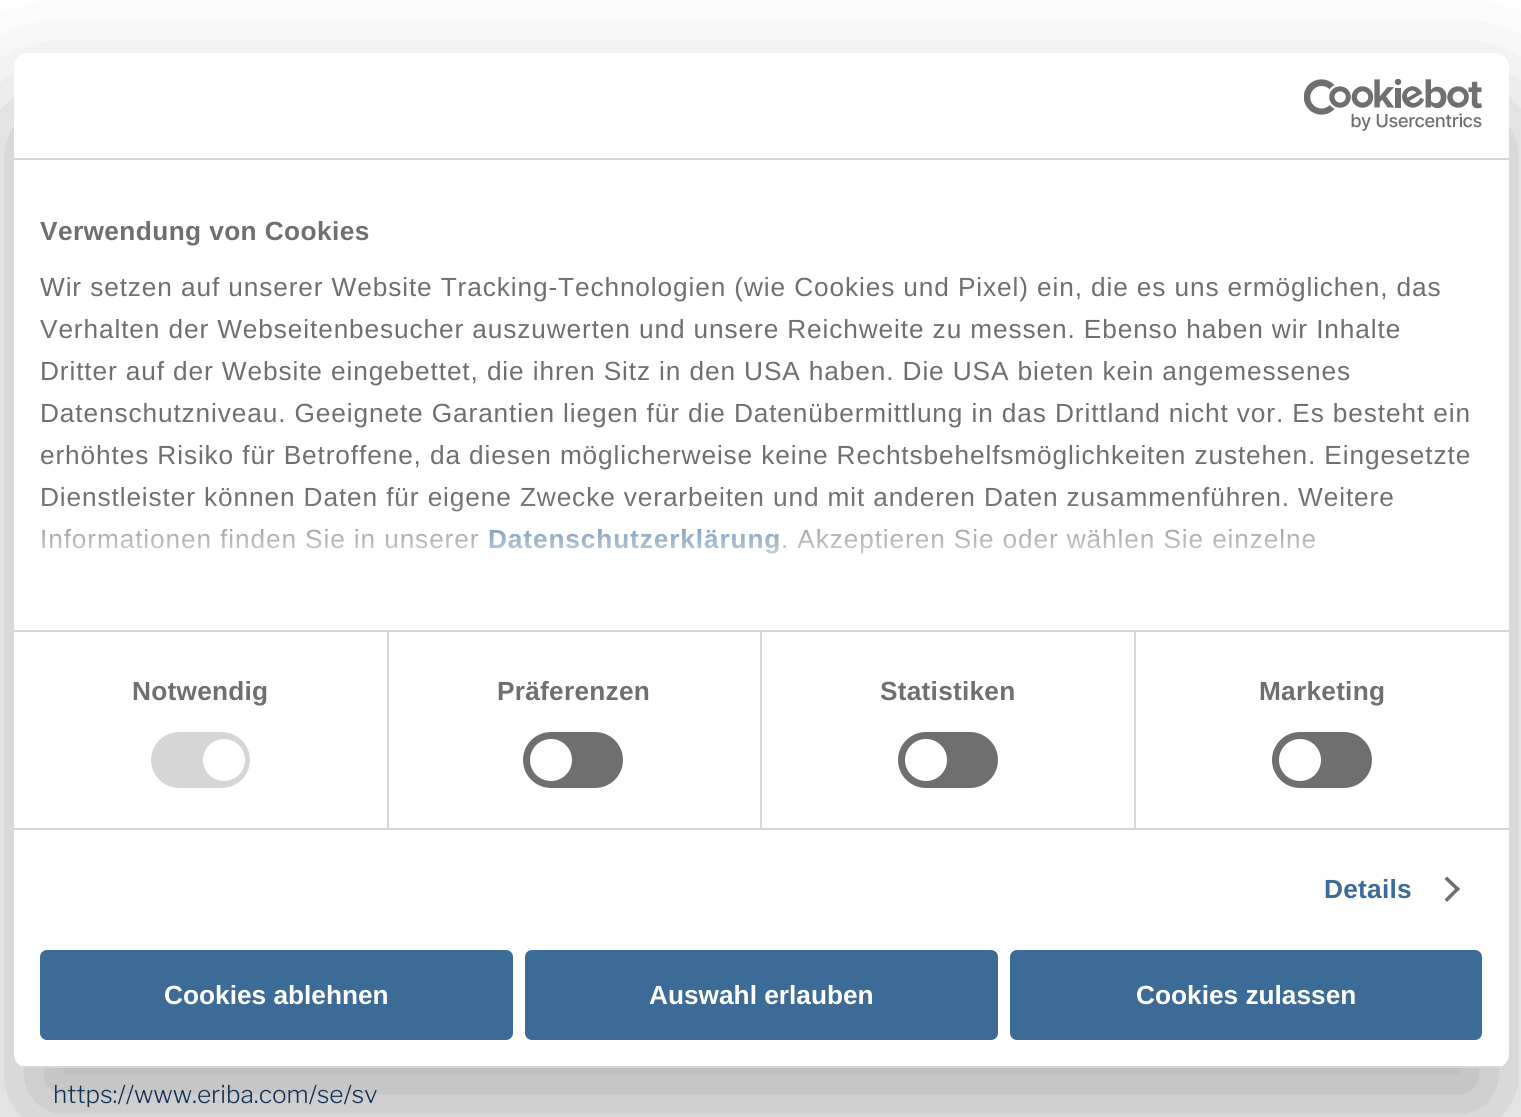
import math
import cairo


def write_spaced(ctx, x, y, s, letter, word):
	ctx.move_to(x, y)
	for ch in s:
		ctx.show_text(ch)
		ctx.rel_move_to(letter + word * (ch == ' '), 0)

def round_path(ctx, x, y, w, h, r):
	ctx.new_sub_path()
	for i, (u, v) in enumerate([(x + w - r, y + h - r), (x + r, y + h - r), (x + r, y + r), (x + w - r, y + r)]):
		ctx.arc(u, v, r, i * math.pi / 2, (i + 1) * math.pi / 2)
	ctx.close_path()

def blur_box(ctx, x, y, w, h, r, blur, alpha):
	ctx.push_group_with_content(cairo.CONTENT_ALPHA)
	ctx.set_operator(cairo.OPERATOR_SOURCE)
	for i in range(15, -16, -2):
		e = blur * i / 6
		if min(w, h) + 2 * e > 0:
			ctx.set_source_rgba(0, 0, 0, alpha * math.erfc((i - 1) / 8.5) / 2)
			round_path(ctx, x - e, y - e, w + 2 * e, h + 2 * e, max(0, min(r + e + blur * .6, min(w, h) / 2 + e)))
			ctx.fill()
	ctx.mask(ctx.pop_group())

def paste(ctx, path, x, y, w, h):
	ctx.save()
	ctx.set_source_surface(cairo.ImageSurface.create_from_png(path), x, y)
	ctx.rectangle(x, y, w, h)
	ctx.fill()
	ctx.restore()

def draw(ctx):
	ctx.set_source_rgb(1, 1, 1)
	ctx.paint()
	ctx.set_source_rgb(0, 0, 0)
	blur_box(ctx, 14, 109, 1495, 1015, 14, 59.5, 0.3)
	ctx.set_source_rgb(1, 1, 1)
	round_path(ctx, 14, 53, 1495, 1015, 14)
	ctx.fill()
	ctx.set_source_rgb(0.839, 0.839, 0.839)
	ctx.rectangle(14, 158, 1495, 2)
	ctx.fill()
	paste(ctx, 'media/1.png', 1304, 79, 178, 52)
	ctx.rectangle(14, 630, 1495, 2)
	ctx.fill()
	ctx.select_font_face('Liberation Sans', cairo.FONT_SLANT_NORMAL, cairo.FONT_WEIGHT_BOLD)
	ctx.set_font_size(26.25)
	ctx.set_source_rgb(0.439, 0.435, 0.435)
	write_spaced(ctx, 40, 240, 'Verwendung von Cookies', 0.4, 0)
	ctx.select_font_face('Liberation Sans')
	for x, y, s in [
		(40, 296, 'Wir setzen auf unserer Website Tracking-Technologien (wie Cookies und Pixel) ein, die es uns ermöglichen, das'),
		(40, 338, 'Verhalten der Webseitenbesucher auszuwerten und unsere Reichweite zu messen. Ebenso haben wir Inhalte'),
		(40, 380, 'Dritter auf der Website eingebettet, die ihren Sitz in den USA haben. Die USA bieten kein angemessenes'),
		(40, 422, 'Datenschutzniveau. Geeignete Garantien liegen für die Datenübermittlung in das Drittland nicht vor. Es besteht ein'),
		(40, 464, 'erhöhtes Risiko für Betroffene, da diesen möglicherweise keine Rechtsbehelfsmöglichkeiten zustehen. Eingesetzte'),
		(40, 506, 'Dienstleister können Daten für eigene Zwecke verarbeiten und mit anderen Daten zusammenführen. Weitere'),
		(40, 548, 'Informationen finden Sie in unserer'),
	]:
		write_spaced(ctx, x, y, s, 0.88, 0)
	ctx.select_font_face('Liberation Sans', cairo.FONT_SLANT_NORMAL, cairo.FONT_WEIGHT_BOLD)
	ctx.set_source_rgb(0.235, 0.42, 0.592)
	write_spaced(ctx, 488, 548, 'Datenschutzerklärung', 0.88, 0)
	ctx.select_font_face('Liberation Sans')
	ctx.set_source_rgb(0.439, 0.435, 0.435)
	write_spaced(ctx, 781, 548, '. Akzeptieren Sie oder wählen Sie einzelne', 0.88, 0)
	gradient = cairo.LinearGradient(750, 630, 750, 499)
	gradient.add_color_stop_rgba(0, 1, 1, 1, 1)
	gradient.add_color_stop_rgba(0.5, 1, 1, 1, 0.8)
	gradient.add_color_stop_rgba(1, 1, 1, 1, 0)
	ctx.set_source(gradient)
	ctx.rectangle(42, 501, 1350, 53)
	ctx.fill()
	ctx.set_source_rgb(0.839, 0.839, 0.839)
	ctx.rectangle(14, 828, 1495, 2)
	ctx.fill()
	ctx.rectangle(387, 632, 2, 196)
	ctx.fill()
	ctx.select_font_face('Liberation Sans', cairo.FONT_SLANT_NORMAL, cairo.FONT_WEIGHT_BOLD)
	ctx.set_source_rgb(0.439, 0.435, 0.435)
	write_spaced(ctx, 132, 700, 'Notwendig', 0.25, 0)
	ctx.set_source_rgb(0.839, 0.839, 0.839)
	round_path(ctx, 151, 732, 99, 56, 28)
	ctx.fill()
	ctx.set_source_rgb(1, 1, 1)
	ctx.arc(224, 760, 21, 0, 2 * math.pi)
	ctx.fill()
	ctx.set_source_rgb(0.839, 0.839, 0.839)
	ctx.rectangle(760, 632, 2, 196)
	ctx.fill()
	ctx.set_source_rgb(0.439, 0.435, 0.435)
	write_spaced(ctx, 497, 700, 'Präferenzen', 0.25, 0)
	round_path(ctx, 523, 732, 100, 56, 28)
	ctx.fill()
	ctx.set_source_rgb(1, 1, 1)
	ctx.arc(551, 760, 21, 0, 2 * math.pi)
	ctx.fill()
	ctx.set_source_rgb(0.839, 0.839, 0.839)
	ctx.rectangle(1134, 632, 2, 196)
	ctx.fill()
	ctx.set_source_rgb(0.439, 0.435, 0.435)
	write_spaced(ctx, 880, 700, 'Statistiken', 0.25, 0)
	round_path(ctx, 898, 732, 100, 56, 28)
	ctx.fill()
	ctx.set_source_rgb(1, 1, 1)
	ctx.arc(926, 760, 21, 0, 2 * math.pi)
	ctx.fill()
	ctx.set_source_rgb(0.439, 0.435, 0.435)
	write_spaced(ctx, 1259, 700, 'Marketing', 0.25, 0)
	round_path(ctx, 1272, 732, 100, 56, 28)
	ctx.fill()
	ctx.set_source_rgb(1, 1, 1)
	ctx.arc(1300, 760, 21, 0, 2 * math.pi)
	ctx.fill()
	ctx.set_source_rgb(0.235, 0.42, 0.592)
	write_spaced(ctx, 1324, 898, 'Details', 0.25, 0)
	ctx.set_source_rgb(0.439, 0.435, 0.435)
	ctx.new_path()
	ctx.move_to(1447, 876.5)
	ctx.line_to(1460, 889)
	ctx.line_to(1457.5, 891.5)
	ctx.line_to(1444.5, 879)
	ctx.close_path()
	ctx.fill()
	ctx.new_path()
	ctx.move_to(1457.5, 886.5)
	ctx.line_to(1460, 889)
	ctx.line_to(1447, 902)
	ctx.line_to(1444.5, 899.5)
	ctx.close_path()
	ctx.fill()
	ctx.save()
	round_path(ctx, 14, 53, 1495, 1015, 14)
	ctx.clip()
	ctx.set_source_rgb(0.839, 0.839, 0.839)
	ctx.rectangle(14, 1066, 1495, 2)
	ctx.fill()
	ctx.restore()
	ctx.set_source_rgb(0.235, 0.42, 0.592)
	round_path(ctx, 42, 952, 469, 86, 5)
	ctx.fill_preserve()
	ctx.set_line_width(4)
	ctx.stroke()
	ctx.set_source_rgb(1, 1, 1)
	ctx.move_to(164, 1004)
	ctx.show_text('Cookies ablehnen')
	ctx.set_source_rgb(0.235, 0.42, 0.592)
	round_path(ctx, 527, 952, 469, 86, 5)
	ctx.fill_preserve()
	ctx.stroke()
	ctx.set_source_rgb(1, 1, 1)
	ctx.move_to(649, 1004)
	ctx.show_text('Auswahl erlauben')
	ctx.set_source_rgb(0.235, 0.42, 0.592)
	round_path(ctx, 1012, 952, 468, 86, 5)
	ctx.fill_preserve()
	ctx.stroke()
	ctx.set_source_rgb(1, 1, 1)
	ctx.move_to(1136, 1004)
	ctx.show_text('Cookies zulassen')
	ctx.select_font_face('Libre Franklin Light')
	ctx.set_font_size(24.5)
	ctx.set_source_rgb(0.071, 0.196, 0.337)
	ctx.move_to(53, 1103)
	ctx.show_text('https://www.eriba.com/se/sv')


surface = cairo.ImageSurface(cairo.FORMAT_RGB24, 1521, 1117)
ctx = cairo.Context(surface)
options = cairo.FontOptions()
options.set_hint_metrics(cairo.HINT_METRICS_OFF)
options.set_hint_style(cairo.HINT_STYLE_NONE)
ctx.set_font_options(options)
ctx.set_miter_limit(4)
draw(ctx)
surface.write_to_png('image.png')
